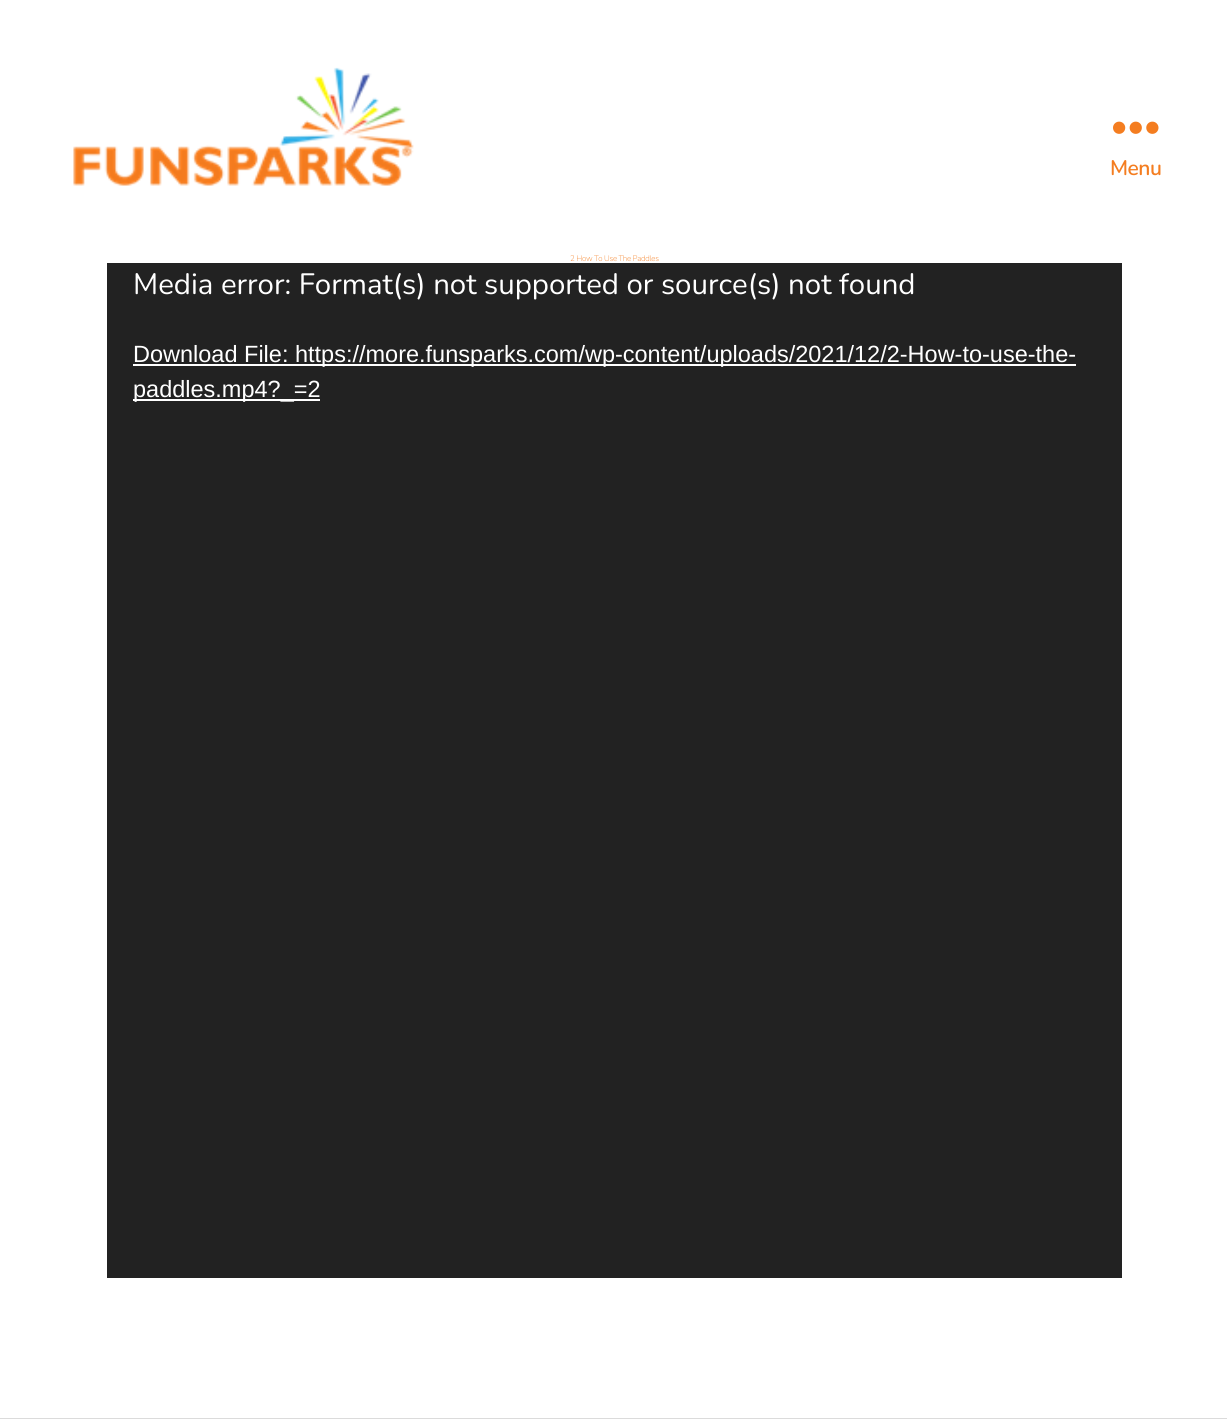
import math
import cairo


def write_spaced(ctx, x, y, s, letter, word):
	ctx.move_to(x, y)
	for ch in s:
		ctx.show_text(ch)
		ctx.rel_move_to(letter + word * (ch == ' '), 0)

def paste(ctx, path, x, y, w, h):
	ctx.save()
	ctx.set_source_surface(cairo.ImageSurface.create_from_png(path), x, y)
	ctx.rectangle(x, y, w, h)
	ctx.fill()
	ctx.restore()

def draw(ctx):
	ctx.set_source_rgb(1, 1, 1)
	ctx.paint()
	paste(ctx, 'media/1.png', 73, 67, 341, 119)
	paste(ctx, 'media/2.png', 1113, 121, 46, 13)
	ctx.select_font_face('Nunito SemiBold')
	ctx.set_font_size(21)
	ctx.set_source_rgb(0.957, 0.49, 0.125)
	write_spaced(ctx, 1110, 175, 'Menu', -0.5, 0)
	ctx.select_font_face('Nunito ExtraLight')
	ctx.set_font_size(8)
	write_spaced(ctx, 570, 261, '2 How To Use The Paddles', -0.3, 0)
	ctx.set_source_rgb(0.133, 0.133, 0.133)
	ctx.rectangle(107, 263, 1015, 1015)
	ctx.fill()
	ctx.select_font_face('Nunito')
	ctx.set_font_size(29.4)
	ctx.set_source_rgb(1, 1, 1)
	ctx.move_to(133, 294)
	ctx.show_text('Media error: Format(s) not supported or source(s) not found')
	ctx.rectangle(133, 364, 943, 2)
	ctx.fill()
	ctx.select_font_face('Liberation Sans')
	ctx.set_font_size(23.5)
	ctx.move_to(133, 362)
	ctx.show_text('Download File: https://more.funsparks.com/wp-content/uploads/2021/12/2-How-to-use-the-')
	ctx.rectangle(133, 399, 187, 2)
	ctx.fill()
	ctx.move_to(133, 397)
	ctx.show_text('paddles.mp4?_=2')
	ctx.set_source_rgb(0.859, 0.859, 0.859)
	ctx.rectangle(0, 1418, 1227, 1)
	ctx.fill()


surface = cairo.ImageSurface(cairo.FORMAT_RGB24, 1227, 1419)
ctx = cairo.Context(surface)
options = cairo.FontOptions()
options.set_hint_metrics(cairo.HINT_METRICS_OFF)
options.set_hint_style(cairo.HINT_STYLE_NONE)
ctx.set_font_options(options)
ctx.set_miter_limit(4)
draw(ctx)
surface.write_to_png('image.png')
